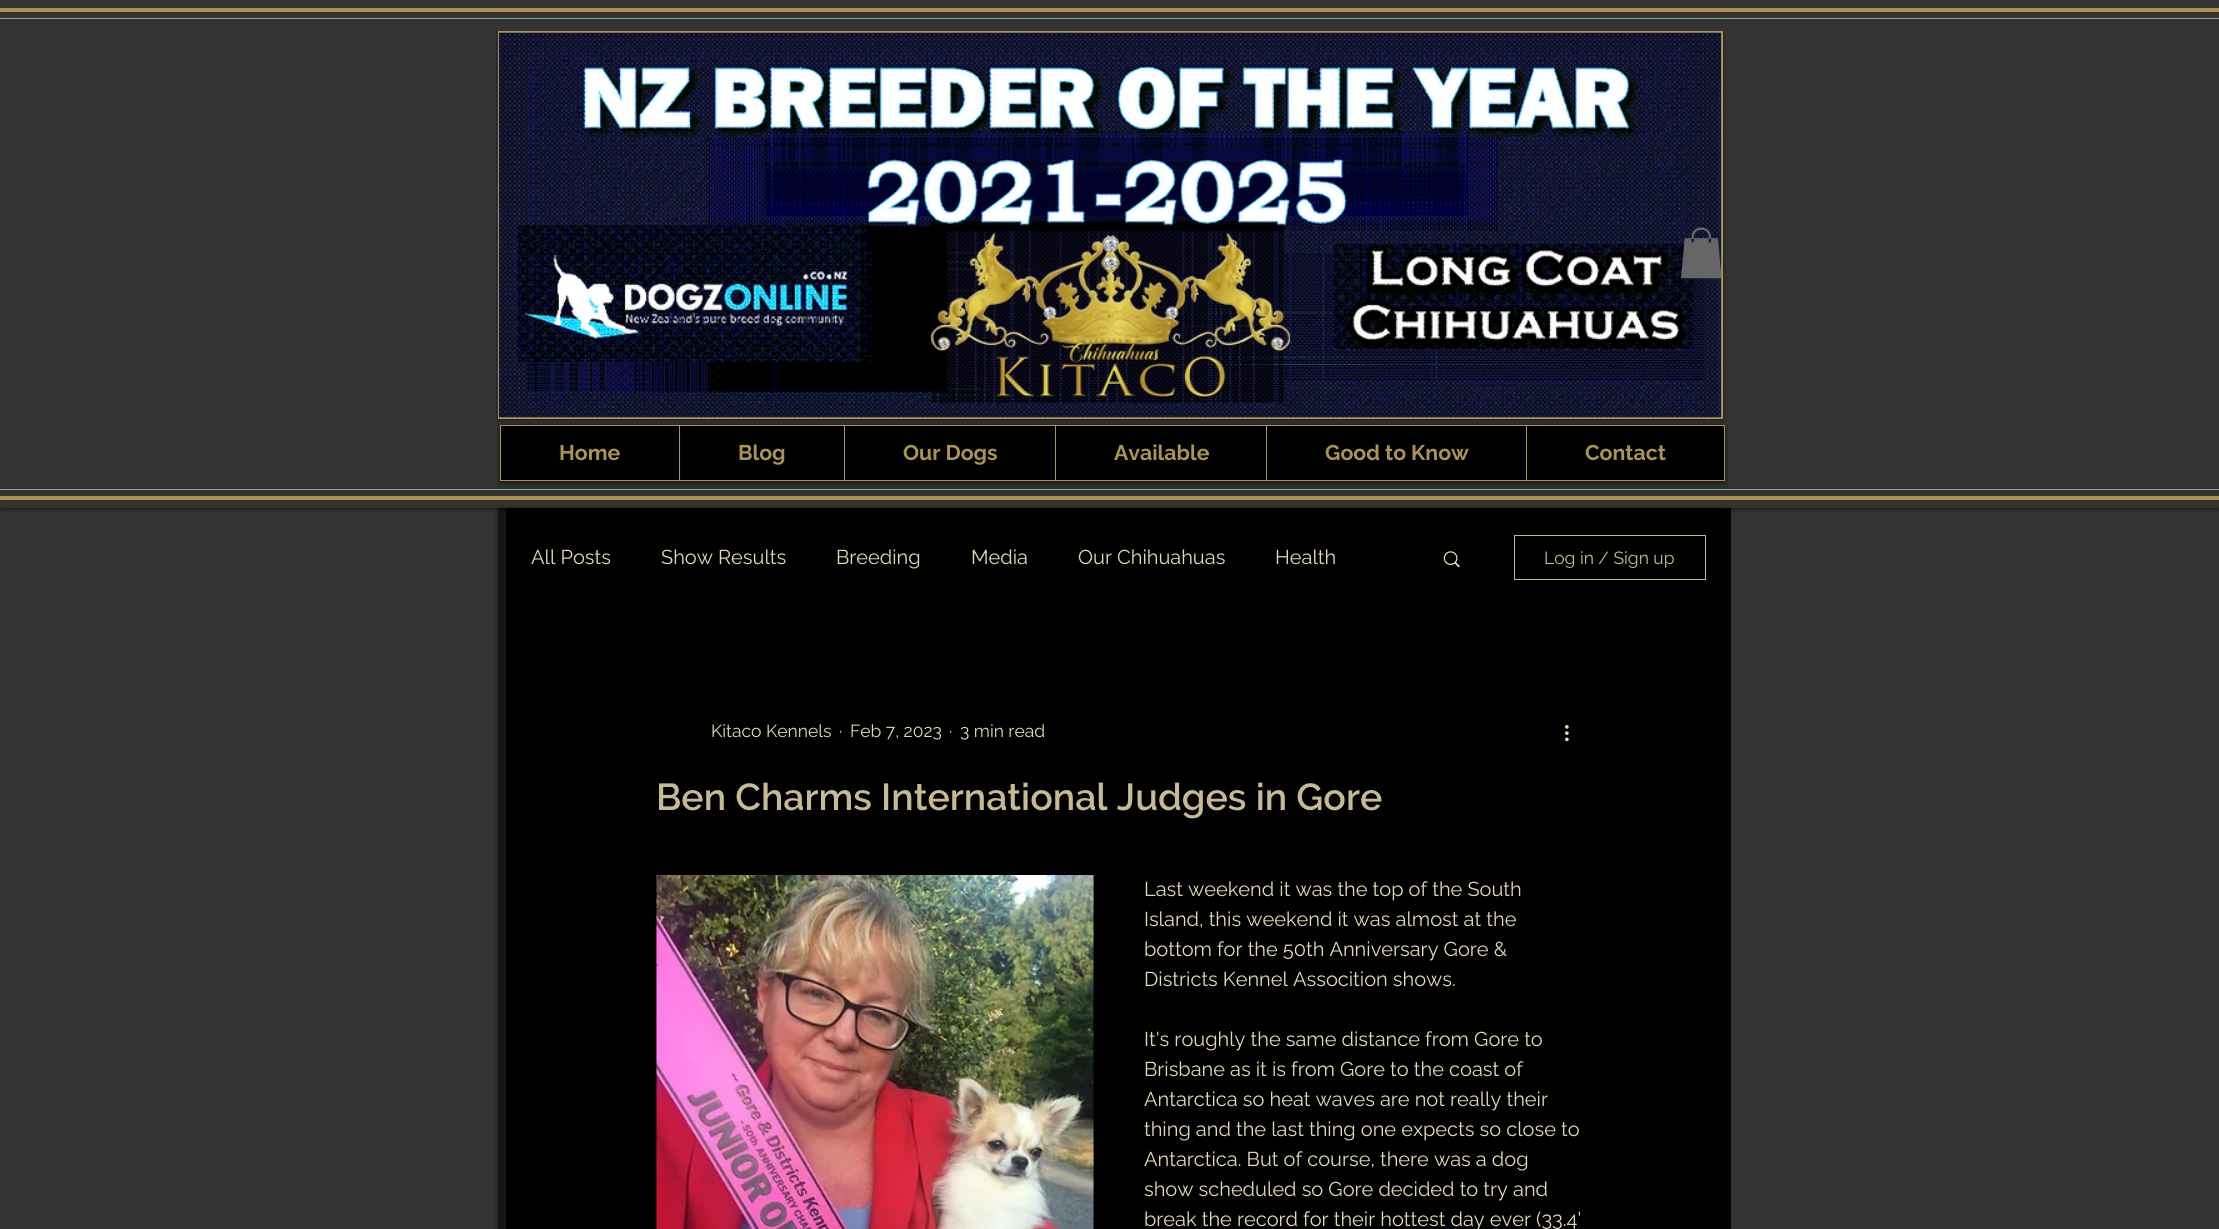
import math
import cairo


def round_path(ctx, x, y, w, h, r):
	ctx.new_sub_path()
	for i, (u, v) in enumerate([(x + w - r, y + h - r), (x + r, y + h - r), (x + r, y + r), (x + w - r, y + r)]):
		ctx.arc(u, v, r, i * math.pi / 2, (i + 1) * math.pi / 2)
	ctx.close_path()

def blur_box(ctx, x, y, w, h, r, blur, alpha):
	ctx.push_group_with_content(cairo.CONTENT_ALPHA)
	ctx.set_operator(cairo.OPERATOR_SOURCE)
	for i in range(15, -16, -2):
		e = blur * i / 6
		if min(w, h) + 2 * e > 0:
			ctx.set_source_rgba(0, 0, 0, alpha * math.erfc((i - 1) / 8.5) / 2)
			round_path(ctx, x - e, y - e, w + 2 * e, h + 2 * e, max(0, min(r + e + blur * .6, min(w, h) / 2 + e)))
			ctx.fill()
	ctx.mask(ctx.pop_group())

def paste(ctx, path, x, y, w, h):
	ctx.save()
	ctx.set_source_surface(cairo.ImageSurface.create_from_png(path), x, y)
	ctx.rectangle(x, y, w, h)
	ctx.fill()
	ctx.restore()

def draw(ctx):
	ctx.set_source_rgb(0.2, 0.2, 0.2)
	ctx.paint()
	ctx.set_source_rgb(0, 0, 0)
	blur_box(ctx, 0, 0, 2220, 508, 0, 3, 0.7)
	ctx.set_source_rgb(0.2, 0.2, 0.2)
	ctx.rectangle(0, 0, 2219, 508)
	ctx.fill()
	ctx.set_source_rgb(0.667, 0.584, 0.314)
	ctx.rectangle(0, 8, 2219, 4)
	ctx.rectangle(0, 496, 2219, 4)
	ctx.fill()
	ctx.set_source_rgb(0.553, 0.667, 0.49)
	ctx.rectangle(0, 18, 2219, 1)
	ctx.rectangle(0, 489, 2219, 1)
	ctx.fill()
	ctx.set_source_rgb(0, 0, 0)
	blur_box(ctx, 498, 33, 1225, 387, 0, 2, 0.5)
	ctx.set_source_rgb(0.667, 0.584, 0.314)
	ctx.rectangle(499, 32, 1223, 386)
	ctx.fill()
	paste(ctx, 'media/1.png', 499, 32, 1223, 386)
	ctx.rectangle(498.5, 31.5, 1224, 387)
	ctx.set_line_width(1)
	ctx.stroke()
	paste(ctx, 'media/2.png', 930, 232, 362, 166)
	paste(ctx, 'media/3.png', 1681, 227, 41, 52)
	ctx.set_source_rgb(0, 0, 0)
	blur_box(ctx, 500, 426, 1225, 57, 0, 2.5, 0.6)
	ctx.set_source_rgb(0, 0, 0)
	ctx.rectangle(500.5, 425.5, 1224, 55)
	ctx.fill_preserve()
	ctx.set_source_rgb(0.667, 0.584, 0.314)
	ctx.stroke()
	ctx.select_font_face('Raleway', cairo.FONT_SLANT_NORMAL, cairo.FONT_WEIGHT_BOLD)
	ctx.set_font_size(21.25)
	ctx.move_to(559, 460)
	ctx.show_text('Home')
	ctx.rectangle(679, 426, 1, 54)
	ctx.fill()
	ctx.move_to(738, 460)
	ctx.show_text('Blog')
	ctx.rectangle(844, 426, 1, 54)
	ctx.fill()
	ctx.move_to(903, 460)
	ctx.show_text('Our Dogs')
	ctx.rectangle(1055, 426, 1, 54)
	ctx.fill()
	ctx.move_to(1114, 460)
	ctx.show_text('Available')
	ctx.rectangle(1266, 426, 1, 54)
	ctx.fill()
	ctx.move_to(1325, 460)
	ctx.show_text('Good to Know')
	ctx.rectangle(1526, 426, 1, 54)
	ctx.fill()
	ctx.move_to(1585, 460)
	ctx.show_text('Contact')
	ctx.save()
	ctx.set_fill_rule(cairo.FILL_RULE_EVEN_ODD)
	ctx.new_path()
	ctx.move_to(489, 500)
	ctx.line_to(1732, 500)
	ctx.line_to(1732, 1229)
	ctx.line_to(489, 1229)
	ctx.close_path()
	ctx.move_to(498, 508)
	ctx.line_to(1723, 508)
	ctx.line_to(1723, 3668)
	ctx.line_to(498, 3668)
	ctx.close_path()
	ctx.clip()
	ctx.set_source_rgb(0, 0, 0)
	blur_box(ctx, 498, 509, 1225, 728, 0, 2.5, 0.6)
	ctx.restore()
	ctx.set_source_rgba(0, 0, 0, 0.6)
	ctx.rectangle(498, 508, 8, 721)
	ctx.fill()
	ctx.set_source_rgb(0, 0, 0)
	ctx.rectangle(506, 508, 1225, 721)
	ctx.fill()
	ctx.select_font_face('Raleway')
	ctx.set_font_size(20)
	ctx.set_source_rgb(0.886, 0.851, 0.729)
	for x, y, s in [
		(531, 564, 'All Posts'),
		(661, 564, 'Show Results'),
		(836, 564, 'Breeding'),
		(971, 564, 'Media'),
		(1078, 564, 'Our Chihuahuas'),
		(1275, 564, 'Health'),
	]:
		ctx.move_to(x, y)
		ctx.show_text(s)
	paste(ctx, 'media/4.png', 1443, 551, 17, 17)
	ctx.rectangle(1514.5, 535.5, 191, 44)
	ctx.set_source_rgb(0.776, 0.729, 0.573)
	ctx.stroke()
	ctx.set_font_size(17.5)
	ctx.move_to(1544, 564)
	ctx.show_text('Log in / Sign up')
	ctx.set_source_rgb(0.886, 0.851, 0.729)
	for x, y, s in [
		(711, 737, 'Kitaco Kennels'),
		(839, 737, '·'),
		(850, 737, 'Feb 7, 2023'),
		(949, 737, '·'),
		(960, 737, '3 min read'),
	]:
		ctx.move_to(x, y)
		ctx.show_text(s)
	paste(ctx, 'media/5.png', 1565, 725, 4, 17)
	ctx.select_font_face('Raleway SemiBold')
	ctx.set_font_size(37.5)
	ctx.set_source_rgb(0.776, 0.729, 0.573)
	ctx.move_to(656, 810)
	ctx.show_text('Ben Charms International Judges in Gore')
	paste(ctx, 'media/6.png', 656, 875, 438, 354)
	ctx.select_font_face('Raleway')
	ctx.set_font_size(20)
	ctx.set_source_rgb(0.886, 0.851, 0.729)
	for x, y, s in [
		(1144, 896, 'Last weekend it was the top of the South'),
		(1144, 926, 'Island, this weekend it was almost at the'),
		(1144, 956, 'bottom for the 50th Anniversary Gore &'),
		(1144, 986, 'Districts Kennel Assocition shows.'),
		(1144, 1046, 'It\'s roughly the same distance from Gore to'),
		(1144, 1076, 'Brisbane as it is from Gore to the coast of'),
		(1144, 1106, 'Antarctica so heat waves are not really their'),
		(1144, 1136, 'thing and the last thing one expects so close to'),
		(1144, 1166, 'Antarctica. But of course, there was a dog'),
		(1144, 1196, 'show scheduled so Gore decided to try and'),
		(1144, 1226, 'break the record for their hottest day ever (33.4\''),
	]:
		ctx.move_to(x, y)
		ctx.show_text(s)


surface = cairo.ImageSurface(cairo.FORMAT_RGB24, 2219, 1229)
ctx = cairo.Context(surface)
options = cairo.FontOptions()
options.set_hint_metrics(cairo.HINT_METRICS_OFF)
options.set_hint_style(cairo.HINT_STYLE_NONE)
ctx.set_font_options(options)
ctx.set_miter_limit(4)
draw(ctx)
surface.write_to_png('image.png')
